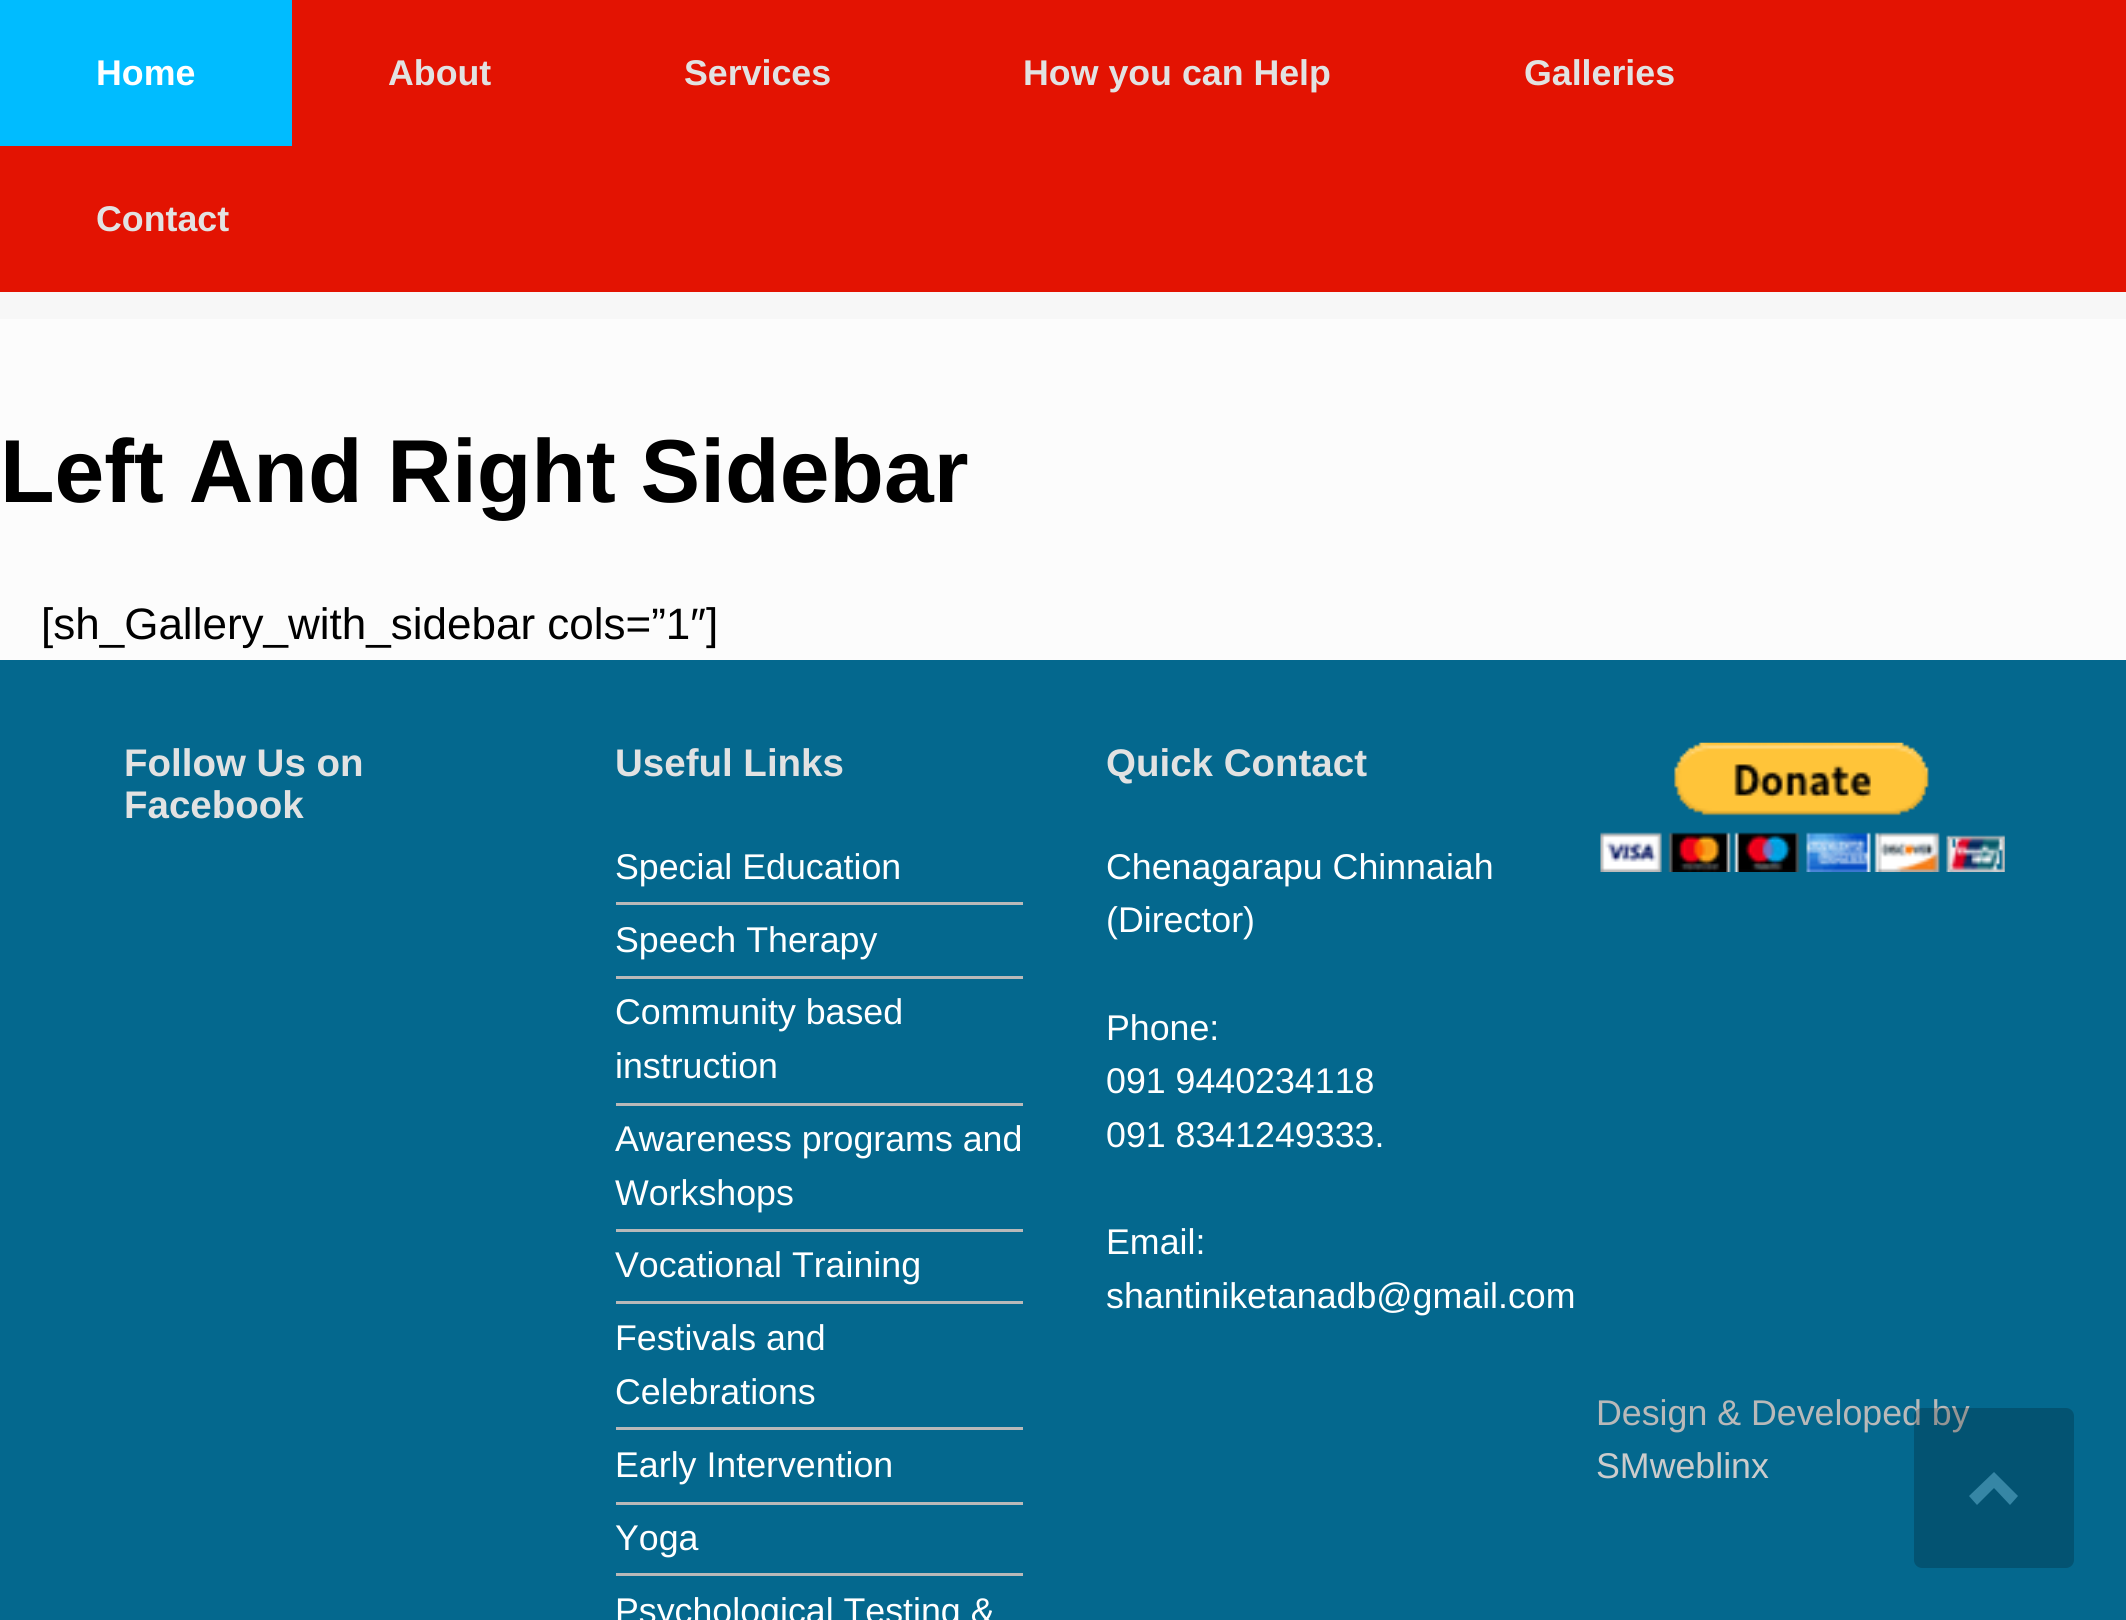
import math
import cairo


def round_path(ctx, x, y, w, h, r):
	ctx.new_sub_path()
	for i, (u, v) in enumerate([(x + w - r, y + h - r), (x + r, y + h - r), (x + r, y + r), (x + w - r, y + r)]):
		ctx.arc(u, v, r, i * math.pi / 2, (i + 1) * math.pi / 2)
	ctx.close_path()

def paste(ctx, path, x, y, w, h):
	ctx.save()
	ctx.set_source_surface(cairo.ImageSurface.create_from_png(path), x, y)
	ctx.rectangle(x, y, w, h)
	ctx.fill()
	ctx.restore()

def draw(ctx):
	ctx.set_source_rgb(0.988, 0.988, 0.988)
	ctx.paint()
	ctx.set_source_rgb(0.89, 0.078, 0.008)
	ctx.rectangle(0, 0, 2126, 292)
	ctx.fill()
	ctx.set_source_rgb(0, 0.737, 1)
	ctx.rectangle(0, 0, 292, 146)
	ctx.fill()
	ctx.select_font_face('Liberation Sans', cairo.FONT_SLANT_NORMAL, cairo.FONT_WEIGHT_BOLD)
	ctx.set_font_size(35.75)
	ctx.set_source_rgb(1, 1, 1)
	ctx.move_to(96, 85)
	ctx.show_text('Home')
	ctx.set_source_rgb(0.886, 0.886, 0.886)
	for x, y, s in [
		(388, 85, 'About'),
		(684, 85, 'Services'),
		(1023, 85, 'How you can Help'),
		(1524, 85, 'Galleries'),
		(96, 231, 'Contact'),
	]:
		ctx.move_to(x, y)
		ctx.show_text(s)
	ctx.set_source_rgb(0.965, 0.965, 0.965)
	ctx.rectangle(0, 292, 2126, 27)
	ctx.fill()
	ctx.set_font_size(89.4)
	ctx.set_source_rgb(0, 0, 0)
	ctx.move_to(0, 502)
	ctx.show_text('Left And Right Sidebar')
	ctx.select_font_face('Liberation Sans')
	ctx.set_font_size(44)
	ctx.move_to(41, 639)
	ctx.show_text('[sh_Gallery_with_sidebar cols=”1″]')
	ctx.set_source_rgb(0.016, 0.408, 0.557)
	ctx.rectangle(0, 660, 2126, 960)
	ctx.fill()
	ctx.select_font_face('Liberation Sans', cairo.FONT_SLANT_NORMAL, cairo.FONT_WEIGHT_BOLD)
	ctx.set_font_size(38.5)
	ctx.set_source_rgb(0.886, 0.886, 0.886)
	for x, y, s in [
		(124, 776, 'Follow Us on'),
		(124, 818, 'Facebook'),
		(615, 776, 'Useful Links'),
	]:
		ctx.move_to(x, y)
		ctx.show_text(s)
	ctx.set_source_rgb(0.725, 0.725, 0.725)
	ctx.rectangle(616, 902, 407, 3)
	ctx.fill()
	ctx.select_font_face('Liberation Sans')
	ctx.set_font_size(35.75)
	ctx.set_source_rgb(1, 1, 1)
	ctx.move_to(615, 879)
	ctx.show_text('Special Education')
	ctx.set_source_rgb(0.725, 0.725, 0.725)
	ctx.rectangle(616, 976, 407, 3)
	ctx.fill()
	ctx.set_source_rgb(1, 1, 1)
	ctx.move_to(615, 952)
	ctx.show_text('Speech Therapy')
	ctx.set_source_rgb(0.725, 0.725, 0.725)
	ctx.rectangle(616, 1103, 407, 3)
	ctx.fill()
	ctx.set_source_rgb(1, 1, 1)
	ctx.move_to(615, 1024)
	ctx.show_text('Community based')
	ctx.move_to(615, 1078)
	ctx.show_text('instruction')
	ctx.set_source_rgb(0.725, 0.725, 0.725)
	ctx.rectangle(616, 1229, 407, 3)
	ctx.fill()
	ctx.set_source_rgb(1, 1, 1)
	ctx.move_to(615, 1151)
	ctx.show_text('Awareness programs and')
	ctx.move_to(615, 1205)
	ctx.show_text('Workshops')
	ctx.set_source_rgb(0.725, 0.725, 0.725)
	ctx.rectangle(616, 1301, 407, 3)
	ctx.fill()
	ctx.set_source_rgb(1, 1, 1)
	ctx.move_to(615, 1277)
	ctx.show_text('Vocational Training')
	ctx.set_source_rgb(0.725, 0.725, 0.725)
	ctx.rectangle(616, 1427, 407, 3)
	ctx.fill()
	ctx.set_source_rgb(1, 1, 1)
	ctx.move_to(615, 1350)
	ctx.show_text('Festivals and')
	ctx.move_to(615, 1404)
	ctx.show_text('Celebrations')
	ctx.set_source_rgb(0.725, 0.725, 0.725)
	ctx.rectangle(616, 1502, 407, 3)
	ctx.fill()
	ctx.set_source_rgb(1, 1, 1)
	ctx.move_to(615, 1477)
	ctx.show_text('Early Intervention')
	ctx.set_source_rgb(0.725, 0.725, 0.725)
	ctx.rectangle(616, 1573, 407, 3)
	ctx.fill()
	ctx.set_source_rgb(1, 1, 1)
	ctx.move_to(615, 1550)
	ctx.show_text('Yoga')
	ctx.move_to(615, 1623)
	ctx.show_text('Psychological Testing &')
	ctx.select_font_face('Liberation Sans', cairo.FONT_SLANT_NORMAL, cairo.FONT_WEIGHT_BOLD)
	ctx.set_font_size(38.5)
	ctx.set_source_rgb(0.886, 0.886, 0.886)
	ctx.move_to(1106, 776)
	ctx.show_text('Quick Contact')
	ctx.select_font_face('Liberation Sans')
	ctx.set_font_size(35.75)
	ctx.set_source_rgb(1, 1, 1)
	for x, y, s in [
		(1106, 879, 'Chenagarapu Chinnaiah'),
		(1106, 932, '(Director)'),
		(1106, 1040, 'Phone:'),
		(1106, 1093, '091 9440234118'),
		(1106, 1147, '091 8341249333.'),
		(1106, 1254, 'Email:'),
		(1106, 1308, 'shantiniketanadb@gmail.com'),
	]:
		ctx.move_to(x, y)
		ctx.show_text(s)
	paste(ctx, 'media/1.png', 1600, 742, 405, 130)
	ctx.set_source_rgb(0.725, 0.725, 0.725)
	ctx.move_to(1596, 1425)
	ctx.show_text('Design & Developed by')
	ctx.set_source_rgb(0.8, 0.8, 0.8)
	ctx.move_to(1596, 1478)
	ctx.show_text('SMweblinx')
	ctx.set_source_rgba(0, 0, 0, 0.2)
	round_path(ctx, 1914, 1408, 160, 160, 8)
	ctx.fill()
	ctx.set_source_rgb(0.212, 0.525, 0.647)
	ctx.new_path()
	ctx.move_to(2018, 1496)
	ctx.line_to(1994, 1472)
	ctx.line_to(1969, 1496)
	ctx.line_to(1977, 1505)
	ctx.line_to(1994, 1488)
	ctx.line_to(2010, 1505)
	ctx.close_path()
	ctx.fill()


surface = cairo.ImageSurface(cairo.FORMAT_RGB24, 2126, 1620)
ctx = cairo.Context(surface)
options = cairo.FontOptions()
options.set_hint_metrics(cairo.HINT_METRICS_OFF)
options.set_hint_style(cairo.HINT_STYLE_NONE)
ctx.set_font_options(options)
ctx.set_miter_limit(4)
draw(ctx)
surface.write_to_png('image.png')
